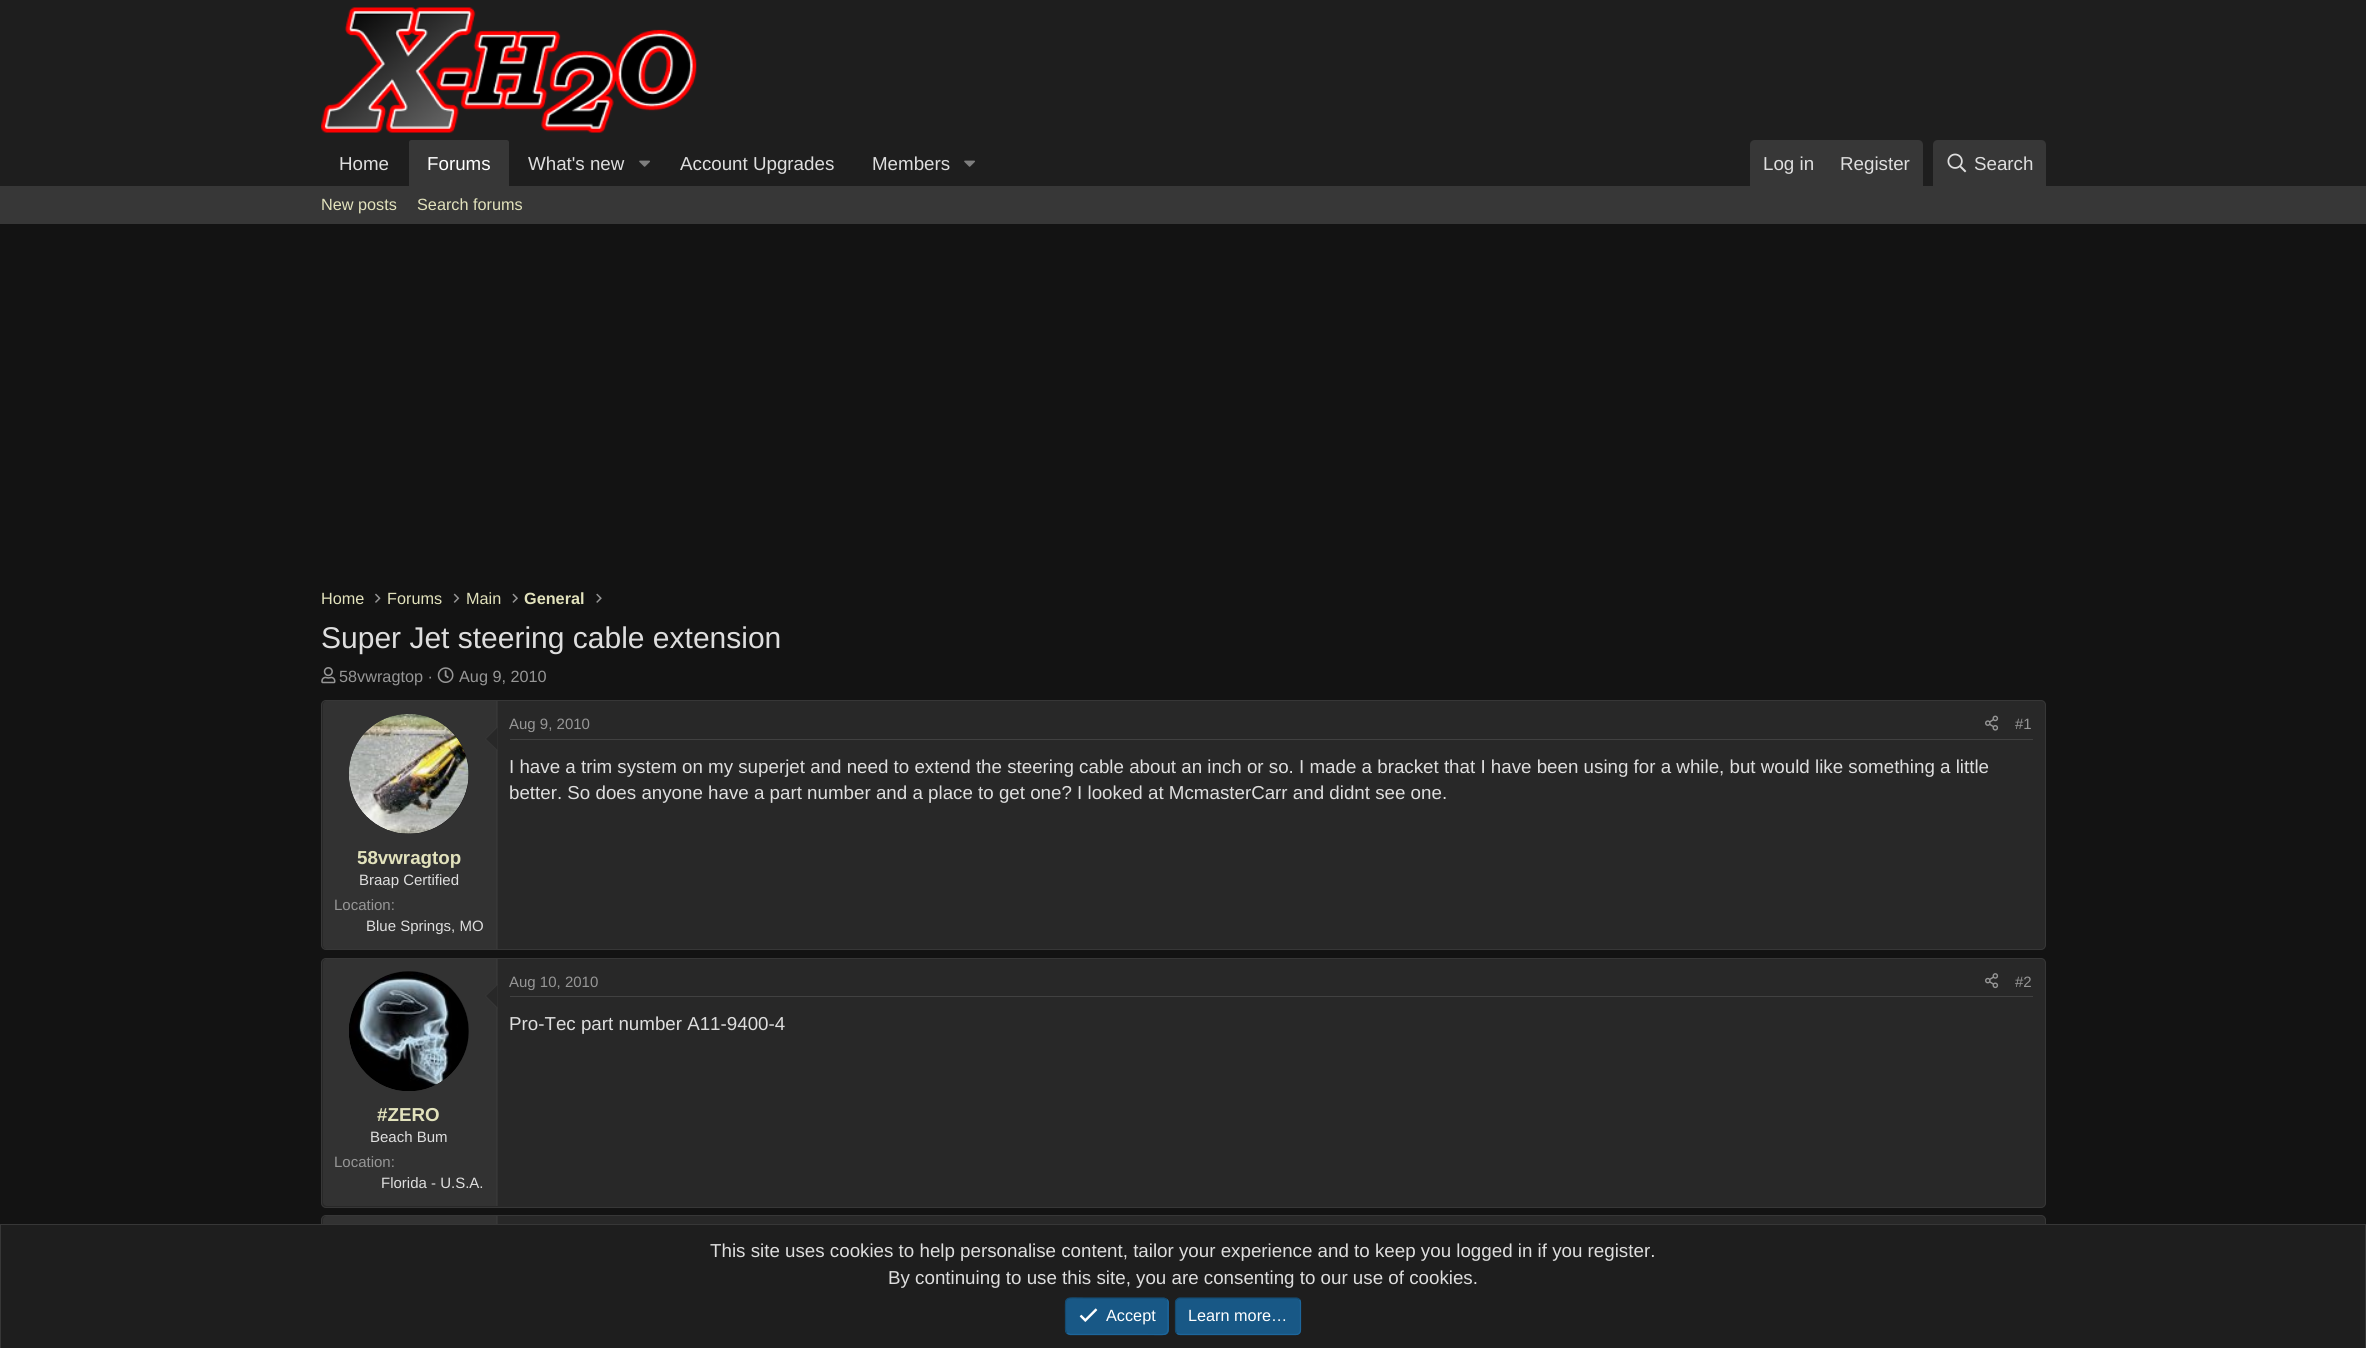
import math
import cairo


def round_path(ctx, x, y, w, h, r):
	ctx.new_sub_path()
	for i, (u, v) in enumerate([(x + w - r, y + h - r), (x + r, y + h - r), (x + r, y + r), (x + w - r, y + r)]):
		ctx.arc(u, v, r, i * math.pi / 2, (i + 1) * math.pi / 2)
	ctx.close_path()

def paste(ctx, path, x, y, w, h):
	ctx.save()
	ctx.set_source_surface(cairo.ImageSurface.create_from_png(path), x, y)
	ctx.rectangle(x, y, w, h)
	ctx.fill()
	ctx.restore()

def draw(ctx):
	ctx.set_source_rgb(0.078, 0.078, 0.078)
	ctx.paint()
	ctx.set_source_rgb(0.118, 0.118, 0.118)
	ctx.rectangle(0, 0, 2366, 186)
	ctx.fill()
	paste(ctx, 'media/1.png', 321, 7, 376, 126)
	ctx.select_font_face('Liberation Sans')
	ctx.set_font_size(18.75)
	ctx.set_source_rgb(0.871, 0.871, 0.871)
	ctx.move_to(339, 170)
	ctx.show_text('Home')
	ctx.set_source_rgb(0.216, 0.216, 0.216)
	ctx.new_path()
	ctx.move_to(411.5, 140)
	ctx.line_to(506.5, 140)
	ctx.curve_to(508, 140, 509, 141, 509, 142.5)
	ctx.line_to(509, 186)
	ctx.line_to(409, 186)
	ctx.line_to(409, 142.5)
	ctx.curve_to(409, 141, 410, 140, 411.5, 140)
	ctx.close_path()
	ctx.fill()
	ctx.set_source_rgb(1, 1, 1)
	ctx.move_to(427, 170)
	ctx.show_text('Forums')
	ctx.set_source_rgb(0.871, 0.871, 0.871)
	ctx.move_to(528, 170)
	ctx.show_text('What\'s new')
	paste(ctx, 'media/2.png', 639, 160, 11, 7)
	ctx.move_to(680, 170)
	ctx.show_text('Account Upgrades')
	ctx.move_to(872, 170)
	ctx.show_text('Members')
	paste(ctx, 'media/2.png', 964, 160, 11, 7)
	ctx.set_source_rgb(0.216, 0.216, 0.216)
	ctx.new_path()
	ctx.move_to(1755, 140)
	ctx.line_to(1918, 140)
	ctx.curve_to(1921, 140, 1923, 142, 1923, 145)
	ctx.line_to(1923, 186)
	ctx.line_to(1750, 186)
	ctx.line_to(1750, 145)
	ctx.curve_to(1750, 142, 1752, 140, 1755, 140)
	ctx.close_path()
	ctx.fill()
	ctx.set_source_rgb(0.871, 0.871, 0.871)
	ctx.move_to(1763, 170)
	ctx.show_text('Log in')
	ctx.move_to(1840, 170)
	ctx.show_text('Register')
	ctx.set_source_rgb(0.216, 0.216, 0.216)
	ctx.new_path()
	ctx.move_to(1938, 140)
	ctx.line_to(2041, 140)
	ctx.curve_to(2044, 140, 2046, 142, 2046, 145)
	ctx.line_to(2046, 186)
	ctx.line_to(1933, 186)
	ctx.line_to(1933, 145)
	ctx.curve_to(1933, 142, 1935, 140, 1938, 140)
	ctx.close_path()
	ctx.fill()
	paste(ctx, 'media/3.png', 1947, 153, 20, 20)
	ctx.set_source_rgb(0.871, 0.871, 0.871)
	ctx.move_to(1974, 170)
	ctx.show_text('Search')
	ctx.set_source_rgb(0.216, 0.216, 0.216)
	ctx.rectangle(0, 186, 2366, 38)
	ctx.fill()
	ctx.set_font_size(16.25)
	ctx.set_source_rgb(0.886, 0.886, 0.737)
	for x, y, s in [
		(321, 210, 'New posts'),
		(417, 210, 'Search forums'),
		(321, 604, 'Home'),
	]:
		ctx.move_to(x, y)
		ctx.show_text(s)
	paste(ctx, 'media/4.png', 375, 593, 6, 10)
	ctx.move_to(387, 604)
	ctx.show_text('Forums')
	paste(ctx, 'media/5.png', 453, 593, 7, 10)
	ctx.move_to(466, 604)
	ctx.show_text('Main')
	paste(ctx, 'media/6.png', 512, 593, 6, 10)
	ctx.select_font_face('Liberation Sans', cairo.FONT_SLANT_NORMAL, cairo.FONT_WEIGHT_BOLD)
	ctx.move_to(524, 604)
	ctx.show_text('General')
	paste(ctx, 'media/7.png', 596, 593, 6, 10)
	ctx.select_font_face('Liberation Sans')
	ctx.set_font_size(30)
	ctx.set_source_rgb(0.871, 0.871, 0.871)
	ctx.move_to(321, 648)
	ctx.show_text('Super Jet steering cable extension')
	paste(ctx, 'media/8.png', 321, 667, 15, 17)
	ctx.set_font_size(16.25)
	ctx.set_source_rgb(0.588, 0.588, 0.588)
	ctx.move_to(339, 682)
	ctx.show_text('58vwragtop ·')
	paste(ctx, 'media/9.png', 437, 667, 17, 16)
	ctx.move_to(459, 682)
	ctx.show_text('Aug 9, 2010')
	ctx.set_source_rgb(0.157, 0.157, 0.157)
	round_path(ctx, 321.5, 700.5, 1724, 249, 4.5)
	ctx.fill_preserve()
	ctx.set_source_rgb(0.216, 0.216, 0.216)
	ctx.set_line_width(1)
	ctx.stroke()
	ctx.set_source_rgb(0.255, 0.255, 0.255)
	ctx.rectangle(510, 739, 1523, 1)
	ctx.fill()
	ctx.set_font_size(15)
	ctx.set_source_rgb(0.588, 0.588, 0.588)
	ctx.move_to(509, 729)
	ctx.show_text('Aug 9, 2010')
	paste(ctx, 'media/10.png', 1985, 715, 14, 16)
	ctx.move_to(2015, 729)
	ctx.show_text('#1')
	ctx.set_font_size(18.75)
	ctx.set_source_rgb(0.871, 0.871, 0.871)
	ctx.move_to(509, 773)
	ctx.show_text('I have a trim system on my superjet and need to extend the steering cable about an inch or so. I made a bracket that I have been using for a while, but would like something a little')
	ctx.move_to(509, 799)
	ctx.show_text('better. So does anyone have a part number and a place to get one? I looked at McmasterCarr and didnt see one.')
	ctx.set_source_rgb(0.196, 0.196, 0.196)
	ctx.new_path()
	ctx.move_to(327, 701)
	ctx.line_to(498, 701)
	ctx.line_to(498, 949)
	ctx.line_to(327, 949)
	ctx.curve_to(325, 949, 323, 947, 323, 945)
	ctx.line_to(323, 705)
	ctx.curve_to(323, 703, 325, 701, 327, 701)
	ctx.close_path()
	ctx.fill()
	ctx.set_source_rgb(0.216, 0.216, 0.216)
	ctx.rectangle(496, 701, 1, 248)
	ctx.fill()
	ctx.set_source_rgb(0.118, 0.118, 0.118)
	ctx.arc(409, 774, 60, 0, 2 * math.pi)
	ctx.fill()
	paste(ctx, 'media/11.png', 349, 714, 120, 120)
	ctx.set_source_rgb(0.216, 0.216, 0.216)
	ctx.new_path()
	ctx.move_to(497.5, 726)
	ctx.line_to(497.5, 751)
	ctx.line_to(485, 739)
	ctx.close_path()
	ctx.fill()
	ctx.set_source_rgb(0.157, 0.157, 0.157)
	ctx.new_path()
	ctx.move_to(497.5, 727.5)
	ctx.line_to(497.5, 750)
	ctx.line_to(486, 739)
	ctx.close_path()
	ctx.fill()
	ctx.select_font_face('Liberation Sans', cairo.FONT_SLANT_NORMAL, cairo.FONT_WEIGHT_BOLD)
	ctx.set_source_rgb(0.886, 0.886, 0.737)
	ctx.move_to(357, 864)
	ctx.show_text('58vwragtop')
	ctx.select_font_face('Liberation Sans')
	ctx.set_font_size(15)
	ctx.set_source_rgb(0.871, 0.871, 0.871)
	ctx.move_to(359, 885)
	ctx.show_text('Braap Certified')
	ctx.set_source_rgb(0.588, 0.588, 0.588)
	ctx.move_to(334, 910)
	ctx.show_text('Location:')
	ctx.set_source_rgb(0.871, 0.871, 0.871)
	ctx.move_to(366, 931)
	ctx.show_text('Blue Springs, MO')
	ctx.set_source_rgb(0.157, 0.157, 0.157)
	round_path(ctx, 321.5, 958.5, 1724, 249, 4.5)
	ctx.fill_preserve()
	ctx.set_source_rgb(0.216, 0.216, 0.216)
	ctx.stroke()
	ctx.set_source_rgb(0.255, 0.255, 0.255)
	ctx.rectangle(510, 996, 1523, 1)
	ctx.fill()
	ctx.set_source_rgb(0.588, 0.588, 0.588)
	ctx.move_to(509, 987)
	ctx.show_text('Aug 10, 2010')
	paste(ctx, 'media/12.png', 1985, 973, 14, 16)
	ctx.move_to(2015, 987)
	ctx.show_text('#2')
	ctx.set_font_size(18.75)
	ctx.set_source_rgb(0.871, 0.871, 0.871)
	ctx.move_to(509, 1030)
	ctx.show_text('Pro-Tec part number A11-9400-4')
	ctx.set_source_rgb(0.196, 0.196, 0.196)
	ctx.new_path()
	ctx.move_to(327, 959)
	ctx.line_to(498, 959)
	ctx.line_to(498, 1206)
	ctx.line_to(327, 1206)
	ctx.curve_to(325, 1206, 323, 1204, 323, 1202)
	ctx.line_to(323, 963)
	ctx.curve_to(323, 961, 325, 959, 327, 959)
	ctx.close_path()
	ctx.fill()
	ctx.set_source_rgb(0.216, 0.216, 0.216)
	ctx.rectangle(496, 959, 1, 247)
	ctx.fill()
	ctx.set_source_rgb(0.118, 0.118, 0.118)
	ctx.arc(409, 1031, 60, 0, 2 * math.pi)
	ctx.fill()
	paste(ctx, 'media/13.png', 349, 971, 120, 120)
	ctx.set_source_rgb(0.216, 0.216, 0.216)
	ctx.new_path()
	ctx.move_to(497.5, 984)
	ctx.line_to(497.5, 1009)
	ctx.line_to(485, 996)
	ctx.close_path()
	ctx.fill()
	ctx.set_source_rgb(0.157, 0.157, 0.157)
	ctx.new_path()
	ctx.move_to(497.5, 985)
	ctx.line_to(497.5, 1007.5)
	ctx.line_to(486, 996)
	ctx.close_path()
	ctx.fill()
	ctx.select_font_face('Liberation Sans', cairo.FONT_SLANT_NORMAL, cairo.FONT_WEIGHT_BOLD)
	ctx.set_source_rgb(0.886, 0.886, 0.737)
	ctx.move_to(377, 1121)
	ctx.show_text('#ZERO')
	ctx.select_font_face('Liberation Sans')
	ctx.set_font_size(15)
	ctx.set_source_rgb(0.871, 0.871, 0.871)
	ctx.move_to(370, 1142)
	ctx.show_text('Beach Bum')
	ctx.set_source_rgb(0.588, 0.588, 0.588)
	ctx.move_to(334, 1167)
	ctx.show_text('Location:')
	ctx.set_source_rgb(0.871, 0.871, 0.871)
	ctx.move_to(381, 1188)
	ctx.show_text('Florida - U.S.A.')
	ctx.set_source_rgb(0.157, 0.157, 0.157)
	round_path(ctx, 321.5, 1215.5, 1724, 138, 4.5)
	ctx.fill_preserve()
	ctx.set_source_rgb(0.216, 0.216, 0.216)
	ctx.stroke()
	ctx.set_source_rgb(0.196, 0.196, 0.196)
	ctx.new_path()
	ctx.move_to(327, 1216)
	ctx.line_to(498, 1216)
	ctx.line_to(498, 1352)
	ctx.line_to(327, 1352)
	ctx.curve_to(325, 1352, 323, 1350, 323, 1348)
	ctx.line_to(323, 1220)
	ctx.curve_to(323, 1218, 325, 1216, 327, 1216)
	ctx.close_path()
	ctx.fill()
	ctx.set_source_rgb(0.216, 0.216, 0.216)
	ctx.rectangle(496, 1216, 1, 8)
	ctx.fill()
	ctx.set_source_rgb(0.118, 0.118, 0.118)
	ctx.rectangle(0.5, 1224.5, 2365, 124)
	ctx.fill_preserve()
	ctx.set_source_rgb(0.216, 0.216, 0.216)
	ctx.stroke()
	ctx.set_font_size(18.75)
	ctx.set_source_rgb(0.871, 0.871, 0.871)
	ctx.move_to(710, 1257)
	ctx.show_text('This site uses cookies to help personalise content, tailor your experience and to keep you logged in if you register.')
	ctx.move_to(888, 1284)
	ctx.show_text('By continuing to use this site, you are consenting to our use of cookies.')
	ctx.set_source_rgb(0.094, 0.345, 0.525)
	round_path(ctx, 1065, 1298, 104, 37, 5)
	ctx.fill()
	ctx.new_path()
	ctx.move_to(1167, 1299.5)
	ctx.curve_to(1169, 1301.5, 1168, 1304.5, 1168, 1307)
	ctx.line_to(1168, 1316)
	ctx.curve_to(1168, 1337.5, 1171, 1334.5, 1148, 1334.5)
	ctx.line_to(1070, 1334.5)
	ctx.line_to(1067, 1333)
	ctx.set_source_rgb(0.11, 0.4, 0.612)
	ctx.set_line_width(1.2)
	ctx.stroke()
	ctx.new_path()
	ctx.move_to(1067, 1333)
	ctx.curve_to(1065, 1331, 1065.5, 1328, 1065.5, 1325.5)
	ctx.line_to(1065.5, 1316)
	ctx.curve_to(1065.5, 1295, 1063, 1298, 1085.5, 1298)
	ctx.line_to(1164, 1298)
	ctx.line_to(1167, 1299.5)
	ctx.set_source_rgb(0.078, 0.29, 0.439)
	ctx.stroke()
	paste(ctx, 'media/14.png', 1079, 1308, 19, 14)
	ctx.set_font_size(16.25)
	ctx.set_source_rgb(1, 1, 1)
	ctx.move_to(1106, 1321)
	ctx.show_text('Accept')
	ctx.set_source_rgb(0.094, 0.345, 0.525)
	round_path(ctx, 1175, 1298, 126, 37, 5)
	ctx.fill()
	ctx.new_path()
	ctx.move_to(1299.5, 1299.5)
	ctx.curve_to(1300, 1300, 1300.5, 1301.5, 1300.5, 1302.5)
	ctx.line_to(1300.5, 1330)
	ctx.curve_to(1300.5, 1331, 1300, 1332.5, 1299.5, 1333)
	ctx.curve_to(1298.5, 1334, 1297.5, 1334.5, 1296, 1334.5)
	ctx.line_to(1180, 1334.5)
	ctx.curve_to(1179, 1334.5, 1177.5, 1334, 1177, 1333)
	ctx.set_source_rgb(0.11, 0.4, 0.612)
	ctx.stroke()
	ctx.new_path()
	ctx.move_to(1177, 1333)
	ctx.curve_to(1176, 1332.5, 1175.5, 1331, 1175.5, 1330)
	ctx.line_to(1175.5, 1302.5)
	ctx.curve_to(1175.5, 1301.5, 1176, 1300, 1177, 1299.5)
	ctx.curve_to(1177.5, 1298.5, 1179, 1298, 1180, 1298)
	ctx.line_to(1296, 1298)
	ctx.curve_to(1297.5, 1298, 1298.5, 1298.5, 1299.5, 1299.5)
	ctx.set_source_rgb(0.078, 0.29, 0.439)
	ctx.stroke()
	ctx.set_source_rgb(1, 1, 1)
	ctx.move_to(1188, 1321)
	ctx.show_text('Learn more…')


surface = cairo.ImageSurface(cairo.FORMAT_RGB24, 2366, 1348)
ctx = cairo.Context(surface)
options = cairo.FontOptions()
options.set_hint_metrics(cairo.HINT_METRICS_OFF)
options.set_hint_style(cairo.HINT_STYLE_NONE)
ctx.set_font_options(options)
ctx.set_miter_limit(4)
draw(ctx)
surface.write_to_png('image.png')
